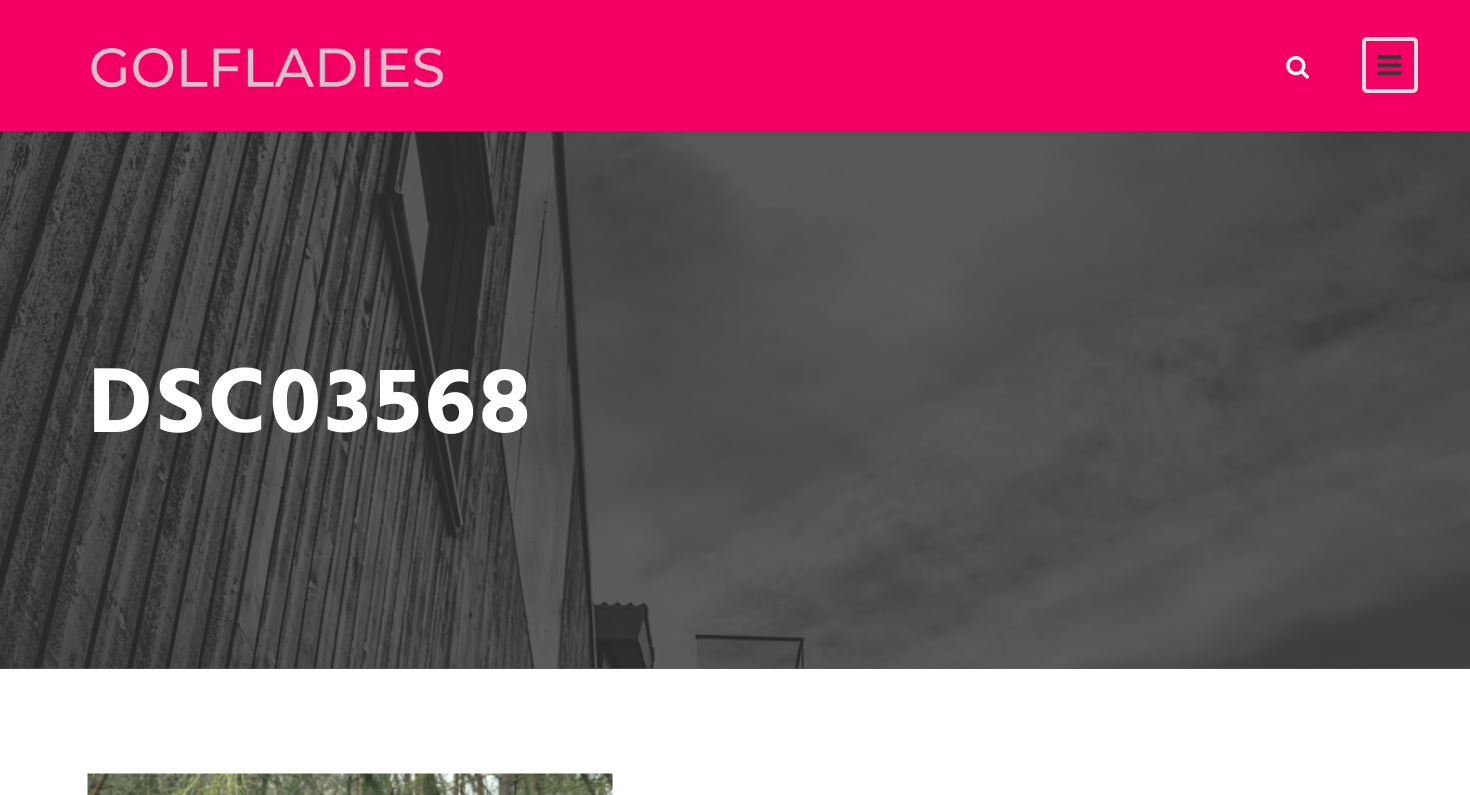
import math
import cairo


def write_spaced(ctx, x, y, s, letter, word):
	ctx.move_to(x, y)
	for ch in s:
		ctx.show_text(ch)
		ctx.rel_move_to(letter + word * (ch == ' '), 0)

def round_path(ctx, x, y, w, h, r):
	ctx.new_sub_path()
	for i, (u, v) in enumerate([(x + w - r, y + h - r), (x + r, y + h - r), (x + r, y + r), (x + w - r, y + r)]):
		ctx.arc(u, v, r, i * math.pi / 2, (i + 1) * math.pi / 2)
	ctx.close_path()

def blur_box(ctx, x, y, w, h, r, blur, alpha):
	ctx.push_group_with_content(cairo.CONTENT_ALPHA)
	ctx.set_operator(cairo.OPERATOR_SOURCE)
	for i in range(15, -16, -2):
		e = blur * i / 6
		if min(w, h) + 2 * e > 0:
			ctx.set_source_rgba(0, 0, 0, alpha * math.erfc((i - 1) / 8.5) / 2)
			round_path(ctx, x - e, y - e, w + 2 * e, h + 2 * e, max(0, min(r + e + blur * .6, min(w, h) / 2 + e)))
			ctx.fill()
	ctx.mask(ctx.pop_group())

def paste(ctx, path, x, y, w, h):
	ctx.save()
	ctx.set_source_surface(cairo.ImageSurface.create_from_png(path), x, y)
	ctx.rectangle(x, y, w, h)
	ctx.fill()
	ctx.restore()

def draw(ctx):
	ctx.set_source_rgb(1, 1, 1)
	ctx.paint()
	paste(ctx, 'media/4.png', 0, 131, 1470, 538)
	ctx.set_source_rgba(0.176, 0.176, 0.176, 0.76)
	ctx.rectangle(0, 131, 1470, 538)
	ctx.fill()
	ctx.set_source_rgb(0, 0, 0)
	blur_box(ctx, 0, 2, 1470, 131, 0, 2, 0.1)
	ctx.set_source_rgb(0.957, 0, 0.392)
	ctx.rectangle(0, 0, 1470, 131)
	ctx.fill()
	paste(ctx, 'media/1.png', 91, 48, 352, 40)
	paste(ctx, 'media/2.png', 1286, 56, 23, 23)
	round_path(ctx, 1364, 39, 52, 52, 3)
	ctx.set_source_rgb(0.867, 0.867, 0.867)
	ctx.set_line_width(4)
	ctx.stroke()
	paste(ctx, 'media/3.png', 1377, 55, 25, 21)
	ctx.select_font_face('Hind', cairo.FONT_SLANT_NORMAL, cairo.FONT_WEIGHT_BOLD)
	ctx.set_font_size(94.5)
	ctx.set_source_rgb(1, 1, 1)
	write_spaced(ctx, 88, 432, 'DSC03568', 3.5, 0)
	paste(ctx, 'media/5.png', 87, 773, 526, 22)


surface = cairo.ImageSurface(cairo.FORMAT_RGB24, 1470, 795)
ctx = cairo.Context(surface)
options = cairo.FontOptions()
options.set_hint_metrics(cairo.HINT_METRICS_OFF)
options.set_hint_style(cairo.HINT_STYLE_NONE)
ctx.set_font_options(options)
ctx.set_miter_limit(4)
draw(ctx)
surface.write_to_png('image.png')
